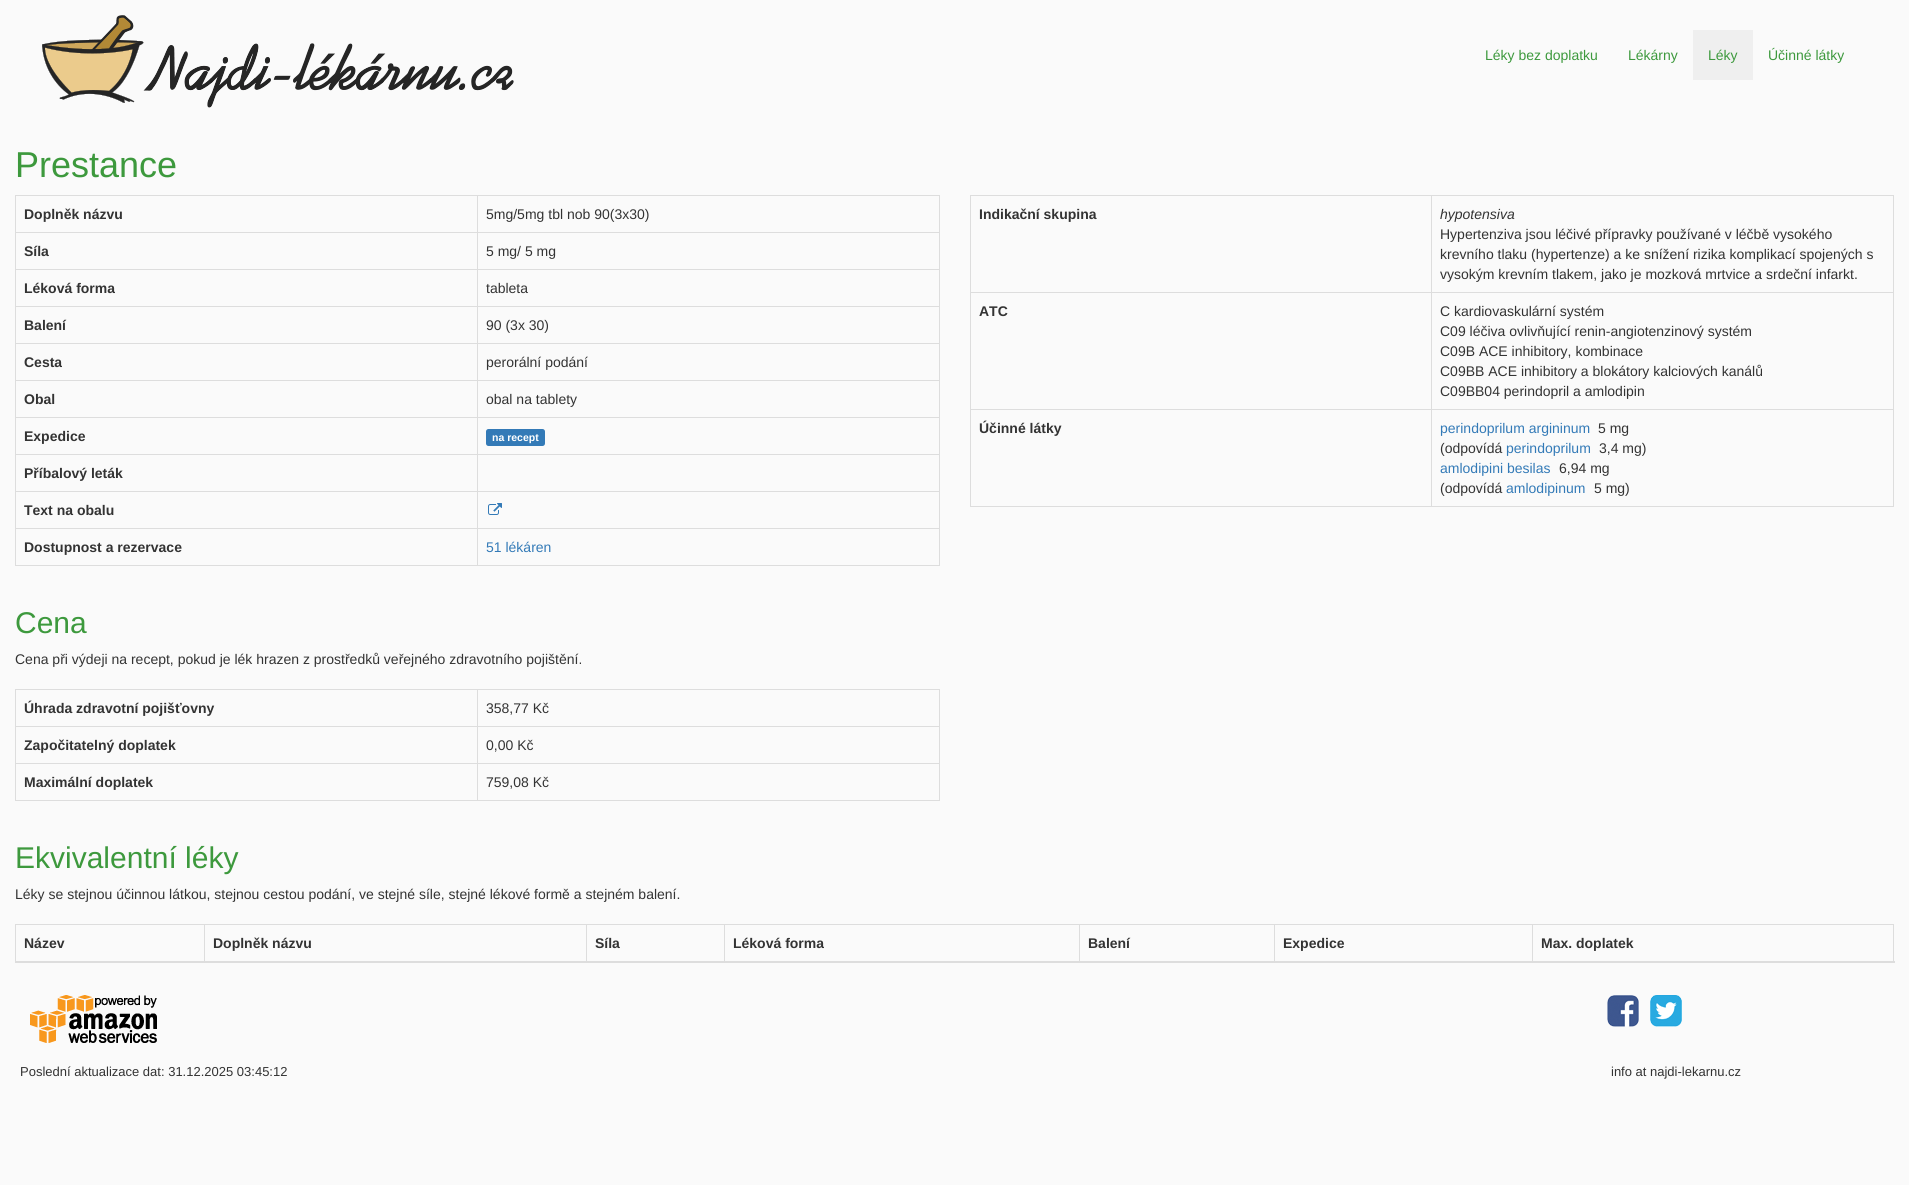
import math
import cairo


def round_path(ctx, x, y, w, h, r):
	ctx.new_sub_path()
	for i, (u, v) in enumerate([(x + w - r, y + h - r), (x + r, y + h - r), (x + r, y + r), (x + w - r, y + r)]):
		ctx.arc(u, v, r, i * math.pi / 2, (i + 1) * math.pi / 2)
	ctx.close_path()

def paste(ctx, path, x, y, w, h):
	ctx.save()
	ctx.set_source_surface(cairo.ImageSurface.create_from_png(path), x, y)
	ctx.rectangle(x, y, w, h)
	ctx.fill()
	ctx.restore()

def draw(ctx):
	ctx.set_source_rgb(0.98, 0.98, 0.98)
	ctx.paint()
	paste(ctx, 'media/1.png', 42, 15, 472, 93)
	ctx.select_font_face('Liberation Sans')
	ctx.set_font_size(14)
	ctx.set_source_rgb(0.239, 0.6, 0.239)
	ctx.move_to(1485, 60)
	ctx.show_text('Léky bez doplatku')
	ctx.move_to(1628, 60)
	ctx.show_text('Lékárny')
	ctx.set_source_rgb(0.937, 0.937, 0.937)
	ctx.rectangle(1693, 30, 60, 50)
	ctx.fill()
	ctx.set_source_rgb(0.239, 0.6, 0.239)
	ctx.move_to(1708, 60)
	ctx.show_text('Léky')
	ctx.move_to(1768, 60)
	ctx.show_text('Účinné látky')
	ctx.set_font_size(36)
	ctx.move_to(15, 177)
	ctx.show_text('Prestance')
	ctx.set_source_rgb(0.867, 0.867, 0.867)
	ctx.rectangle(15, 195, 925, 1)
	ctx.rectangle(939, 195, 1, 371)
	ctx.rectangle(15, 565, 925, 1)
	ctx.rectangle(15, 195, 1, 371)
	ctx.fill()
	ctx.select_font_face('Liberation Sans', cairo.FONT_SLANT_NORMAL, cairo.FONT_WEIGHT_BOLD)
	ctx.set_font_size(14)
	ctx.set_source_rgb(0.2, 0.2, 0.2)
	ctx.move_to(24, 219)
	ctx.show_text('Doplněk názvu')
	ctx.set_source_rgb(0.867, 0.867, 0.867)
	ctx.rectangle(477, 232, 463, 1)
	ctx.rectangle(477, 269, 463, 1)
	ctx.rectangle(477, 306, 463, 1)
	ctx.rectangle(477, 343, 463, 1)
	ctx.rectangle(477, 380, 463, 1)
	ctx.rectangle(477, 417, 463, 1)
	ctx.rectangle(477, 454, 463, 1)
	ctx.rectangle(477, 491, 463, 1)
	ctx.rectangle(477, 528, 463, 1)
	ctx.rectangle(477, 528, 1, 38)
	ctx.rectangle(15, 528, 463, 1)
	ctx.rectangle(477, 491, 1, 38)
	ctx.rectangle(15, 491, 463, 1)
	ctx.rectangle(477, 454, 1, 38)
	ctx.rectangle(15, 454, 463, 1)
	ctx.rectangle(477, 417, 1, 38)
	ctx.rectangle(15, 417, 463, 1)
	ctx.rectangle(477, 380, 1, 38)
	ctx.rectangle(15, 380, 463, 1)
	ctx.rectangle(477, 343, 1, 38)
	ctx.rectangle(15, 343, 463, 1)
	ctx.rectangle(477, 306, 1, 38)
	ctx.rectangle(15, 306, 463, 1)
	ctx.rectangle(477, 269, 1, 38)
	ctx.rectangle(15, 269, 463, 1)
	ctx.rectangle(477, 232, 1, 38)
	ctx.rectangle(15, 232, 463, 1)
	ctx.rectangle(477, 195, 1, 38)
	ctx.fill()
	ctx.select_font_face('Liberation Sans')
	ctx.set_source_rgb(0.2, 0.2, 0.2)
	ctx.move_to(486, 219)
	ctx.show_text('5mg/5mg tbl nob 90(3x30)')
	ctx.select_font_face('Liberation Sans', cairo.FONT_SLANT_NORMAL, cairo.FONT_WEIGHT_BOLD)
	ctx.move_to(24, 256)
	ctx.show_text('Síla')
	ctx.select_font_face('Liberation Sans')
	ctx.move_to(486, 256)
	ctx.show_text('5 mg/ 5 mg')
	ctx.select_font_face('Liberation Sans', cairo.FONT_SLANT_NORMAL, cairo.FONT_WEIGHT_BOLD)
	ctx.move_to(24, 293)
	ctx.show_text('Léková forma')
	ctx.select_font_face('Liberation Sans')
	ctx.move_to(486, 293)
	ctx.show_text('tableta')
	ctx.select_font_face('Liberation Sans', cairo.FONT_SLANT_NORMAL, cairo.FONT_WEIGHT_BOLD)
	ctx.move_to(24, 330)
	ctx.show_text('Balení')
	ctx.select_font_face('Liberation Sans')
	ctx.move_to(486, 330)
	ctx.show_text('90 (3x 30)')
	ctx.select_font_face('Liberation Sans', cairo.FONT_SLANT_NORMAL, cairo.FONT_WEIGHT_BOLD)
	ctx.move_to(24, 367)
	ctx.show_text('Cesta')
	ctx.select_font_face('Liberation Sans')
	ctx.move_to(486, 367)
	ctx.show_text('perorální podání')
	ctx.select_font_face('Liberation Sans', cairo.FONT_SLANT_NORMAL, cairo.FONT_WEIGHT_BOLD)
	ctx.move_to(24, 404)
	ctx.show_text('Obal')
	ctx.select_font_face('Liberation Sans')
	ctx.move_to(486, 404)
	ctx.show_text('obal na tablety')
	ctx.select_font_face('Liberation Sans', cairo.FONT_SLANT_NORMAL, cairo.FONT_WEIGHT_BOLD)
	ctx.move_to(24, 441)
	ctx.show_text('Expedice')
	ctx.set_source_rgb(0.2, 0.478, 0.718)
	round_path(ctx, 486, 429, 59, 17, 2.5)
	ctx.fill()
	ctx.set_font_size(10.5)
	ctx.set_source_rgb(1, 1, 1)
	ctx.move_to(492, 441)
	ctx.show_text('na recept')
	ctx.set_font_size(14)
	ctx.set_source_rgb(0.2, 0.2, 0.2)
	ctx.move_to(24, 478)
	ctx.show_text('Příbalový leták')
	ctx.move_to(24, 515)
	ctx.show_text('Text na obalu')
	paste(ctx, 'media/2.png', 488, 503, 14, 12)
	ctx.move_to(24, 552)
	ctx.show_text('Dostupnost a rezervace')
	ctx.select_font_face('Liberation Sans')
	ctx.set_source_rgb(0.2, 0.478, 0.718)
	ctx.move_to(486, 552)
	ctx.show_text('51 lékáren')
	ctx.set_source_rgb(0.867, 0.867, 0.867)
	ctx.rectangle(1431, 195, 463, 1)
	ctx.rectangle(1431, 292, 463, 1)
	ctx.rectangle(1431, 409, 463, 1)
	ctx.rectangle(1893, 409, 1, 98)
	ctx.rectangle(1431, 506, 463, 1)
	ctx.rectangle(1431, 409, 1, 98)
	ctx.rectangle(970, 409, 462, 1)
	ctx.rectangle(1431, 292, 1, 118)
	ctx.rectangle(970, 292, 462, 1)
	ctx.rectangle(1431, 195, 1, 98)
	ctx.rectangle(970, 195, 462, 1)
	ctx.rectangle(970, 506, 462, 1)
	ctx.rectangle(970, 409, 1, 98)
	ctx.rectangle(970, 292, 1, 118)
	ctx.rectangle(970, 195, 1, 98)
	ctx.fill()
	ctx.select_font_face('Liberation Sans', cairo.FONT_SLANT_NORMAL, cairo.FONT_WEIGHT_BOLD)
	ctx.set_source_rgb(0.2, 0.2, 0.2)
	ctx.move_to(979, 219)
	ctx.show_text('Indikační skupina')
	ctx.set_source_rgb(0.867, 0.867, 0.867)
	ctx.rectangle(1893, 292, 1, 118)
	ctx.fill()
	ctx.rectangle(1893, 195, 1, 98)
	ctx.fill()
	ctx.select_font_face('Liberation Sans', cairo.FONT_SLANT_ITALIC)
	ctx.set_source_rgb(0.2, 0.2, 0.2)
	ctx.move_to(1440, 219)
	ctx.show_text('hypotensiva')
	ctx.select_font_face('Liberation Sans')
	for x, y, s in [
		(1440, 239, 'Hypertenziva jsou léčivé přípravky používané v léčbě vysokého'),
		(1440, 259, 'krevního tlaku (hypertenze) a ke snížení rizika komplikací spojených s'),
		(1440, 279, 'vysokým krevním tlakem, jako je mozková mrtvice a srdeční infarkt.'),
	]:
		ctx.move_to(x, y)
		ctx.show_text(s)
	ctx.select_font_face('Liberation Sans', cairo.FONT_SLANT_NORMAL, cairo.FONT_WEIGHT_BOLD)
	ctx.move_to(979, 316)
	ctx.show_text('ATC')
	ctx.select_font_face('Liberation Sans')
	for x, y, s in [
		(1440, 316, 'C kardiovaskulární systém'),
		(1440, 336, 'C09 léčiva ovlivňující renin-angiotenzinový systém'),
		(1440, 356, 'C09B ACE inhibitory, kombinace'),
		(1440, 376, 'C09BB ACE inhibitory a blokátory kalciových kanálů'),
		(1440, 396, 'C09BB04 perindopril a amlodipin'),
	]:
		ctx.move_to(x, y)
		ctx.show_text(s)
	ctx.select_font_face('Liberation Sans', cairo.FONT_SLANT_NORMAL, cairo.FONT_WEIGHT_BOLD)
	ctx.move_to(979, 433)
	ctx.show_text('Účinné látky')
	ctx.select_font_face('Liberation Sans')
	ctx.set_source_rgb(0.2, 0.478, 0.718)
	ctx.move_to(1440, 433)
	ctx.show_text('perindoprilum argininum')
	ctx.set_source_rgb(0.2, 0.2, 0.2)
	ctx.move_to(1598, 433)
	ctx.show_text('5 mg')
	ctx.move_to(1440, 453)
	ctx.show_text('(odpovídá')
	ctx.set_source_rgb(0.2, 0.478, 0.718)
	ctx.move_to(1506, 453)
	ctx.show_text('perindoprilum')
	ctx.set_source_rgb(0.2, 0.2, 0.2)
	ctx.move_to(1599, 453)
	ctx.show_text('3,4 mg)')
	ctx.set_source_rgb(0.2, 0.478, 0.718)
	ctx.move_to(1440, 473)
	ctx.show_text('amlodipini besilas')
	ctx.set_source_rgb(0.2, 0.2, 0.2)
	ctx.move_to(1559, 473)
	ctx.show_text('6,94 mg')
	ctx.move_to(1440, 493)
	ctx.show_text('(odpovídá')
	ctx.set_source_rgb(0.2, 0.478, 0.718)
	ctx.move_to(1506, 493)
	ctx.show_text('amlodipinum')
	ctx.set_source_rgb(0.2, 0.2, 0.2)
	ctx.move_to(1594, 493)
	ctx.show_text('5 mg)')
	ctx.set_font_size(30)
	ctx.set_source_rgb(0.239, 0.6, 0.239)
	ctx.move_to(15, 633)
	ctx.show_text('Cena')
	ctx.set_font_size(14)
	ctx.set_source_rgb(0.2, 0.2, 0.2)
	ctx.move_to(15, 664)
	ctx.show_text('Cena při výdeji na recept, pokud je lék hrazen z prostředků veřejného zdravotního pojištění.')
	ctx.set_source_rgb(0.867, 0.867, 0.867)
	ctx.rectangle(15, 689, 925, 1)
	ctx.rectangle(939, 689, 1, 112)
	ctx.rectangle(15, 800, 925, 1)
	ctx.rectangle(15, 689, 1, 112)
	ctx.fill()
	ctx.select_font_face('Liberation Sans', cairo.FONT_SLANT_NORMAL, cairo.FONT_WEIGHT_BOLD)
	ctx.set_source_rgb(0.2, 0.2, 0.2)
	ctx.move_to(24, 713)
	ctx.show_text('Úhrada zdravotní pojišťovny')
	ctx.set_source_rgb(0.867, 0.867, 0.867)
	ctx.rectangle(477, 726, 463, 1)
	ctx.rectangle(477, 763, 463, 1)
	ctx.rectangle(477, 763, 1, 38)
	ctx.rectangle(15, 763, 463, 1)
	ctx.rectangle(477, 726, 1, 38)
	ctx.rectangle(15, 726, 463, 1)
	ctx.rectangle(477, 689, 1, 38)
	ctx.fill()
	ctx.select_font_face('Liberation Sans')
	ctx.set_source_rgb(0.2, 0.2, 0.2)
	ctx.move_to(486, 713)
	ctx.show_text('358,77 Kč')
	ctx.select_font_face('Liberation Sans', cairo.FONT_SLANT_NORMAL, cairo.FONT_WEIGHT_BOLD)
	ctx.move_to(24, 750)
	ctx.show_text('Započitatelný doplatek')
	ctx.select_font_face('Liberation Sans')
	ctx.move_to(486, 750)
	ctx.show_text('0,00 Kč')
	ctx.select_font_face('Liberation Sans', cairo.FONT_SLANT_NORMAL, cairo.FONT_WEIGHT_BOLD)
	ctx.move_to(24, 787)
	ctx.show_text('Maximální doplatek')
	ctx.select_font_face('Liberation Sans')
	ctx.move_to(486, 787)
	ctx.show_text('759,08 Kč')
	ctx.set_font_size(30)
	ctx.set_source_rgb(0.239, 0.6, 0.239)
	ctx.move_to(15, 868)
	ctx.show_text('Ekvivalentní léky')
	ctx.set_font_size(14)
	ctx.set_source_rgb(0.2, 0.2, 0.2)
	ctx.move_to(15, 899)
	ctx.show_text('Léky se stejnou účinnou látkou, stejnou cestou podání, ve stejné síle, stejné lékové formě a stejném balení.')
	ctx.set_source_rgb(0.867, 0.867, 0.867)
	ctx.rectangle(15, 924, 1879, 1)
	ctx.rectangle(1893, 924, 1, 39)
	ctx.rectangle(15, 924, 1, 39)
	ctx.fill()
	ctx.select_font_face('Liberation Sans', cairo.FONT_SLANT_NORMAL, cairo.FONT_WEIGHT_BOLD)
	ctx.set_source_rgb(0.2, 0.2, 0.2)
	ctx.move_to(24, 948)
	ctx.show_text('Název')
	ctx.set_source_rgb(0.867, 0.867, 0.867)
	ctx.rectangle(204, 924, 1, 38)
	ctx.fill()
	ctx.set_source_rgb(0.2, 0.2, 0.2)
	ctx.move_to(213, 948)
	ctx.show_text('Doplněk názvu')
	ctx.set_source_rgb(0.867, 0.867, 0.867)
	ctx.rectangle(586, 924, 1, 38)
	ctx.fill()
	ctx.set_source_rgb(0.2, 0.2, 0.2)
	ctx.move_to(595, 948)
	ctx.show_text('Síla')
	ctx.set_source_rgb(0.867, 0.867, 0.867)
	ctx.rectangle(724, 924, 1, 38)
	ctx.fill()
	ctx.set_source_rgb(0.2, 0.2, 0.2)
	ctx.move_to(733, 948)
	ctx.show_text('Léková forma')
	ctx.set_source_rgb(0.867, 0.867, 0.867)
	ctx.rectangle(1079, 924, 1, 38)
	ctx.fill()
	ctx.set_source_rgb(0.2, 0.2, 0.2)
	ctx.move_to(1088, 948)
	ctx.show_text('Balení')
	ctx.set_source_rgb(0.867, 0.867, 0.867)
	ctx.rectangle(1274, 924, 1, 38)
	ctx.fill()
	ctx.set_source_rgb(0.2, 0.2, 0.2)
	ctx.move_to(1283, 948)
	ctx.show_text('Expedice')
	ctx.set_source_rgb(0.867, 0.867, 0.867)
	ctx.rectangle(1532, 924, 1, 38)
	ctx.fill()
	ctx.rectangle(15, 961, 1880, 2)
	ctx.fill()
	ctx.set_source_rgb(0.2, 0.2, 0.2)
	ctx.move_to(1541, 948)
	ctx.show_text('Max. doplatek')
	paste(ctx, 'media/3.png', 30, 995, 127, 48)
	paste(ctx, 'media/4.png', 1607, 995, 32, 32)
	paste(ctx, 'media/5.png', 1650, 995, 32, 32)
	ctx.select_font_face('Liberation Sans')
	ctx.set_font_size(13)
	ctx.move_to(20, 1076)
	ctx.show_text('Poslední aktualizace dat: 31.12.2025 03:45:12')
	ctx.move_to(1611, 1076)
	ctx.show_text('info at najdi-lekarnu.cz')


surface = cairo.ImageSurface(cairo.FORMAT_RGB24, 1909, 1185)
ctx = cairo.Context(surface)
options = cairo.FontOptions()
options.set_hint_metrics(cairo.HINT_METRICS_OFF)
options.set_hint_style(cairo.HINT_STYLE_NONE)
ctx.set_font_options(options)
ctx.set_miter_limit(4)
draw(ctx)
surface.write_to_png('image.png')
